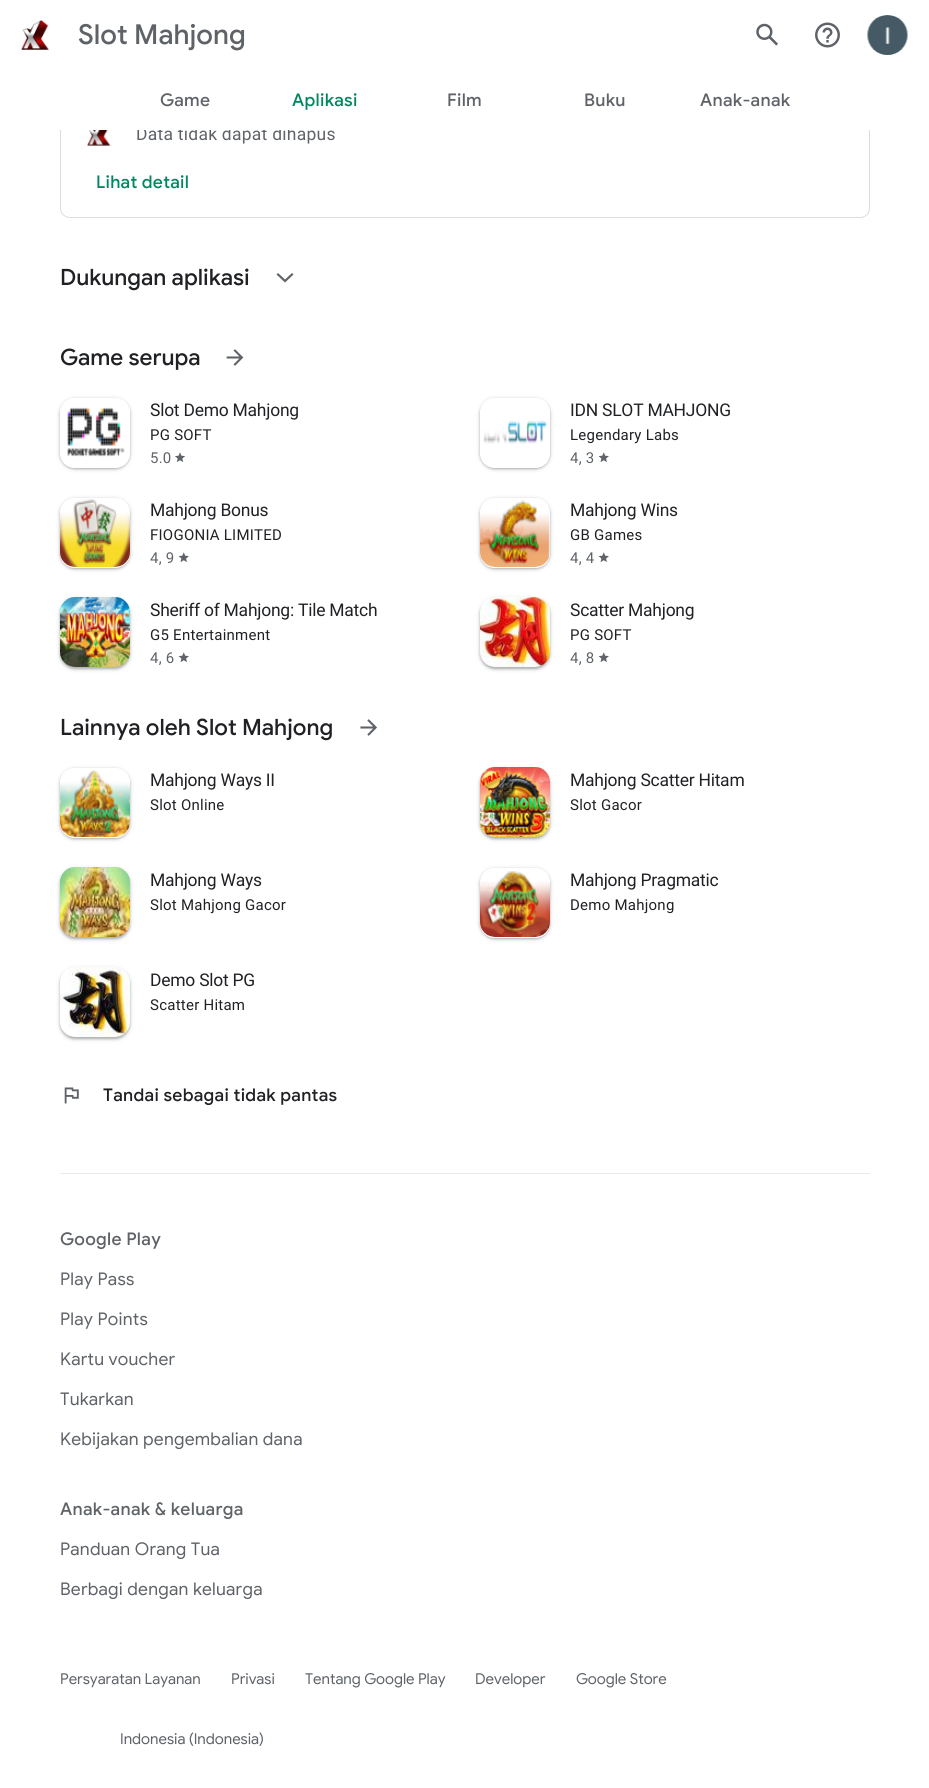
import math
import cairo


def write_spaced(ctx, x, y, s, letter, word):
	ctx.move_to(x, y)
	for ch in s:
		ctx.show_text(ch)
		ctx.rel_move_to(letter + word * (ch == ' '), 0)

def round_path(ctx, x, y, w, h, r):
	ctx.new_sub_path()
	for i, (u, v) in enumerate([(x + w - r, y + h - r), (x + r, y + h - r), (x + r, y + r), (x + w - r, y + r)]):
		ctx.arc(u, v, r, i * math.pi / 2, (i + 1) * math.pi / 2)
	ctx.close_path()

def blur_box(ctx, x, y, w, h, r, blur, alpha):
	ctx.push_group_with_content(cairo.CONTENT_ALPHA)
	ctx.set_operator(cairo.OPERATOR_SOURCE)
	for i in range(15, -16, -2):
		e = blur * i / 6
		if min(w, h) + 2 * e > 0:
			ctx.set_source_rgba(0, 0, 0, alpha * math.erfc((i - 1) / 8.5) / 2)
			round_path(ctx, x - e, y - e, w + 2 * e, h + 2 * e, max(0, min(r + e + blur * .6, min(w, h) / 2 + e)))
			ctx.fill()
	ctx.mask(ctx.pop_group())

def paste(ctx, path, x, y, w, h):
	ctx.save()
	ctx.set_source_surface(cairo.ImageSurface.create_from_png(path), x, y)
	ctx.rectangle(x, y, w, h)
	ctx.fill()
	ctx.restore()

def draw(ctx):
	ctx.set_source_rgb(1, 1, 1)
	ctx.paint()
	round_path(ctx, 60.5, -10.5, 809, 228, 9.5)
	ctx.set_source_rgb(0.855, 0.863, 0.878)
	ctx.set_line_width(1)
	ctx.stroke()
	ctx.select_font_face('Roboto')
	ctx.set_font_size(17.5)
	ctx.set_source_rgb(0.373, 0.388, 0.408)
	write_spaced(ctx, 136, 140, 'Data tidak dapat dihapus', 0.25, 0)
	ctx.set_source_rgb(1, 1, 1)
	ctx.rectangle(60, 0, 810, 130)
	ctx.fill()
	paste(ctx, 'media/1.png', 21, 20, 28, 30)
	ctx.select_font_face('Google Sans Medium')
	ctx.set_font_size(27.5)
	ctx.set_source_rgb(0.373, 0.388, 0.408)
	ctx.move_to(78, 44)
	ctx.show_text('Slot Mahjong')
	paste(ctx, 'media/2.png', 756, 23, 22, 23)
	paste(ctx, 'media/3.png', 815, 22, 25, 26)
	paste(ctx, 'media/4.png', 867, 15, 41, 40)
	ctx.set_font_size(17.5)
	write_spaced(ctx, 160, 106, 'Game', 0.3, 0)
	ctx.set_source_rgb(0.004, 0.529, 0.373)
	write_spaced(ctx, 292, 106, 'Aplikasi', 0.3, 0)
	ctx.set_source_rgb(0.373, 0.388, 0.408)
	for x, y, s in [
		(447, 106, 'Film'),
		(584, 106, 'Buku'),
		(700, 106, 'Anak-anak'),
	]:
		write_spaced(ctx, x, y, s, 0.3, 0)
	paste(ctx, 'media/5.png', 87, 130, 24, 16)
	ctx.set_source_rgb(0.004, 0.529, 0.373)
	write_spaced(ctx, 96, 188, 'Lihat detail', 0.25, 0)
	ctx.set_font_size(22.5)
	ctx.set_source_rgb(0.125, 0.129, 0.141)
	ctx.move_to(60, 285)
	ctx.show_text('Dukungan aplikasi')
	ctx.set_source_rgb(0.373, 0.388, 0.408)
	ctx.new_path()
	ctx.move_to(278, 273)
	ctx.line_to(276.5, 274.5)
	ctx.line_to(285, 282.5)
	ctx.line_to(293.5, 274.5)
	ctx.line_to(292, 273)
	ctx.line_to(285, 279.5)
	ctx.close_path()
	ctx.fill()
	ctx.set_source_rgb(0.125, 0.129, 0.141)
	ctx.move_to(60, 365)
	ctx.show_text('Game serupa')
	paste(ctx, 'media/6.png', 226, 349, 18, 17)
	ctx.save()
	ctx.set_fill_rule(cairo.FILL_RULE_EVEN_ODD)
	ctx.new_path()
	ctx.move_to(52, 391)
	ctx.line_to(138, 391)
	ctx.line_to(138, 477)
	ctx.line_to(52, 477)
	ctx.close_path()
	ctx.move_to(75, 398)
	ctx.line_to(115, 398)
	ctx.curve_to(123.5, 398, 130, 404.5, 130, 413)
	ctx.line_to(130, 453)
	ctx.curve_to(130, 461.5, 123.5, 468, 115, 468)
	ctx.line_to(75, 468)
	ctx.curve_to(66.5, 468, 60, 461.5, 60, 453)
	ctx.line_to(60, 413)
	ctx.curve_to(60, 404.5, 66.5, 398, 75, 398)
	ctx.close_path()
	ctx.clip()
	ctx.set_source_rgb(0.235, 0.251, 0.263)
	blur_box(ctx, 59, 398, 72, 72, 16, 2, 0.15)
	ctx.restore()
	ctx.save()
	ctx.set_fill_rule(cairo.FILL_RULE_EVEN_ODD)
	ctx.new_path()
	ctx.move_to(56, 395)
	ctx.line_to(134, 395)
	ctx.line_to(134, 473)
	ctx.line_to(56, 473)
	ctx.close_path()
	ctx.move_to(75, 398)
	ctx.line_to(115, 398)
	ctx.curve_to(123.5, 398, 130, 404.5, 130, 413)
	ctx.line_to(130, 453)
	ctx.curve_to(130, 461.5, 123.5, 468, 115, 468)
	ctx.line_to(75, 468)
	ctx.curve_to(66.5, 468, 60, 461.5, 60, 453)
	ctx.line_to(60, 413)
	ctx.curve_to(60, 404.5, 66.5, 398, 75, 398)
	ctx.close_path()
	ctx.clip()
	ctx.set_source_rgb(0.235, 0.251, 0.263)
	blur_box(ctx, 60, 399, 70, 70, 15, 1, 0.3)
	ctx.restore()
	paste(ctx, 'media/7.png', 67, 407, 58, 50)
	ctx.select_font_face('Roboto')
	ctx.set_font_size(17.5)
	write_spaced(ctx, 150, 416, 'Slot Demo Mahjong', -0.25, 0)
	ctx.set_font_size(15)
	write_spaced(ctx, 150, 440, 'PG SOFT', 0.25, 0)
	ctx.set_source_rgb(0.373, 0.388, 0.408)
	write_spaced(ctx, 150, 463, '5.0', 0.25, 0)
	paste(ctx, 'media/8.png', 175, 452, 10, 10)
	ctx.save()
	ctx.set_fill_rule(cairo.FILL_RULE_EVEN_ODD)
	ctx.new_path()
	ctx.move_to(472, 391)
	ctx.line_to(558, 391)
	ctx.line_to(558, 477)
	ctx.line_to(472, 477)
	ctx.close_path()
	ctx.move_to(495, 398)
	ctx.line_to(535, 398)
	ctx.curve_to(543.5, 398, 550, 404.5, 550, 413)
	ctx.line_to(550, 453)
	ctx.curve_to(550, 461.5, 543.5, 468, 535, 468)
	ctx.line_to(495, 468)
	ctx.curve_to(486.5, 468, 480, 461.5, 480, 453)
	ctx.line_to(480, 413)
	ctx.curve_to(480, 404.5, 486.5, 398, 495, 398)
	ctx.close_path()
	ctx.clip()
	ctx.set_source_rgb(0.235, 0.251, 0.263)
	blur_box(ctx, 479, 398, 72, 72, 16, 2, 0.15)
	ctx.restore()
	ctx.save()
	ctx.set_fill_rule(cairo.FILL_RULE_EVEN_ODD)
	ctx.new_path()
	ctx.move_to(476, 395)
	ctx.line_to(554, 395)
	ctx.line_to(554, 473)
	ctx.line_to(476, 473)
	ctx.close_path()
	ctx.move_to(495, 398)
	ctx.line_to(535, 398)
	ctx.curve_to(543.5, 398, 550, 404.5, 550, 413)
	ctx.line_to(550, 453)
	ctx.curve_to(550, 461.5, 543.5, 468, 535, 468)
	ctx.line_to(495, 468)
	ctx.curve_to(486.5, 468, 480, 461.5, 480, 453)
	ctx.line_to(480, 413)
	ctx.curve_to(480, 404.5, 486.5, 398, 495, 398)
	ctx.close_path()
	ctx.clip()
	ctx.set_source_rgb(0.235, 0.251, 0.263)
	blur_box(ctx, 480, 399, 70, 70, 15, 1, 0.3)
	ctx.restore()
	paste(ctx, 'media/9.png', 483, 420, 64, 24)
	ctx.set_font_size(17.5)
	ctx.set_source_rgb(0.125, 0.129, 0.141)
	write_spaced(ctx, 570, 416, 'IDN SLOT MAHJONG', -0.25, 0)
	ctx.set_font_size(15)
	write_spaced(ctx, 570, 440, 'Legendary Labs', 0.25, 0)
	ctx.set_source_rgb(0.373, 0.388, 0.408)
	write_spaced(ctx, 570, 463, '4, 3', 0.25, 0)
	paste(ctx, 'media/10.png', 598, 452, 11, 10)
	ctx.save()
	ctx.set_fill_rule(cairo.FILL_RULE_EVEN_ODD)
	ctx.new_path()
	ctx.move_to(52, 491)
	ctx.line_to(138, 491)
	ctx.line_to(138, 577)
	ctx.line_to(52, 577)
	ctx.close_path()
	ctx.move_to(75, 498)
	ctx.line_to(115, 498)
	ctx.curve_to(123.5, 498, 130, 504.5, 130, 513)
	ctx.line_to(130, 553)
	ctx.curve_to(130, 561.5, 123.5, 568, 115, 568)
	ctx.line_to(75, 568)
	ctx.curve_to(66.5, 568, 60, 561.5, 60, 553)
	ctx.line_to(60, 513)
	ctx.curve_to(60, 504.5, 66.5, 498, 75, 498)
	ctx.close_path()
	ctx.clip()
	ctx.set_source_rgb(0.235, 0.251, 0.263)
	blur_box(ctx, 59, 498, 72, 72, 16, 2, 0.15)
	ctx.restore()
	ctx.save()
	ctx.set_fill_rule(cairo.FILL_RULE_EVEN_ODD)
	ctx.new_path()
	ctx.move_to(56, 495)
	ctx.line_to(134, 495)
	ctx.line_to(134, 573)
	ctx.line_to(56, 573)
	ctx.close_path()
	ctx.move_to(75, 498)
	ctx.line_to(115, 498)
	ctx.curve_to(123.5, 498, 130, 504.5, 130, 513)
	ctx.line_to(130, 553)
	ctx.curve_to(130, 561.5, 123.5, 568, 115, 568)
	ctx.line_to(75, 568)
	ctx.curve_to(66.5, 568, 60, 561.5, 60, 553)
	ctx.line_to(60, 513)
	ctx.curve_to(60, 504.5, 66.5, 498, 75, 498)
	ctx.close_path()
	ctx.clip()
	ctx.set_source_rgb(0.235, 0.251, 0.263)
	blur_box(ctx, 60, 499, 70, 70, 15, 1, 0.3)
	ctx.restore()
	paste(ctx, 'media/11.png', 60, 499, 70, 68)
	ctx.set_font_size(17.5)
	ctx.set_source_rgb(0.125, 0.129, 0.141)
	write_spaced(ctx, 150, 516, 'Mahjong Bonus', -0.25, 0)
	ctx.set_font_size(15)
	write_spaced(ctx, 150, 540, 'FIOGONIA LIMITED', 0.25, 0)
	ctx.set_source_rgb(0.373, 0.388, 0.408)
	write_spaced(ctx, 150, 563, '4, 9', 0.25, 0)
	paste(ctx, 'media/10.png', 178, 552, 11, 10)
	ctx.save()
	ctx.set_fill_rule(cairo.FILL_RULE_EVEN_ODD)
	ctx.new_path()
	ctx.move_to(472, 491)
	ctx.line_to(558, 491)
	ctx.line_to(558, 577)
	ctx.line_to(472, 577)
	ctx.close_path()
	ctx.move_to(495, 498)
	ctx.line_to(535, 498)
	ctx.curve_to(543.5, 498, 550, 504.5, 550, 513)
	ctx.line_to(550, 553)
	ctx.curve_to(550, 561.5, 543.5, 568, 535, 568)
	ctx.line_to(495, 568)
	ctx.curve_to(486.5, 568, 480, 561.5, 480, 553)
	ctx.line_to(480, 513)
	ctx.curve_to(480, 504.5, 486.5, 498, 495, 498)
	ctx.close_path()
	ctx.clip()
	ctx.set_source_rgb(0.235, 0.251, 0.263)
	blur_box(ctx, 479, 498, 72, 72, 16, 2, 0.15)
	ctx.restore()
	ctx.save()
	ctx.set_fill_rule(cairo.FILL_RULE_EVEN_ODD)
	ctx.new_path()
	ctx.move_to(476, 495)
	ctx.line_to(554, 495)
	ctx.line_to(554, 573)
	ctx.line_to(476, 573)
	ctx.close_path()
	ctx.move_to(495, 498)
	ctx.line_to(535, 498)
	ctx.curve_to(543.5, 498, 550, 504.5, 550, 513)
	ctx.line_to(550, 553)
	ctx.curve_to(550, 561.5, 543.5, 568, 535, 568)
	ctx.line_to(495, 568)
	ctx.curve_to(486.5, 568, 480, 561.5, 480, 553)
	ctx.line_to(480, 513)
	ctx.curve_to(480, 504.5, 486.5, 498, 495, 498)
	ctx.close_path()
	ctx.clip()
	ctx.set_source_rgb(0.235, 0.251, 0.263)
	blur_box(ctx, 480, 499, 70, 70, 15, 1, 0.3)
	ctx.restore()
	paste(ctx, 'media/12.png', 480, 499, 70, 68)
	ctx.set_font_size(17.5)
	ctx.set_source_rgb(0.125, 0.129, 0.141)
	write_spaced(ctx, 570, 516, 'Mahjong Wins', -0.25, 0)
	ctx.set_font_size(15)
	write_spaced(ctx, 570, 540, 'GB Games', 0.25, 0)
	ctx.set_source_rgb(0.373, 0.388, 0.408)
	write_spaced(ctx, 570, 563, '4, 4', 0.25, 0)
	paste(ctx, 'media/10.png', 598, 552, 11, 10)
	ctx.set_source_rgb(0.235, 0.251, 0.263)
	blur_box(ctx, 59, 598, 72, 72, 16, 2, 0.15)
	blur_box(ctx, 60, 599, 70, 70, 15, 1, 0.3)
	paste(ctx, 'media/13.png', 60, 597, 70, 70)
	ctx.set_font_size(17.5)
	ctx.set_source_rgb(0.125, 0.129, 0.141)
	write_spaced(ctx, 150, 616, 'Sheriff of Mahjong: Tile Match', -0.25, 0)
	ctx.set_font_size(15)
	write_spaced(ctx, 150, 640, 'G5 Entertainment', 0.25, 0)
	ctx.set_source_rgb(0.373, 0.388, 0.408)
	write_spaced(ctx, 150, 663, '4, 6', 0.25, 0)
	paste(ctx, 'media/10.png', 178, 652, 11, 10)
	ctx.set_source_rgb(0.235, 0.251, 0.263)
	blur_box(ctx, 479, 598, 72, 72, 16, 2, 0.15)
	blur_box(ctx, 480, 599, 70, 70, 15, 1, 0.3)
	paste(ctx, 'media/14.png', 480, 597, 70, 70)
	ctx.set_font_size(17.5)
	ctx.set_source_rgb(0.125, 0.129, 0.141)
	write_spaced(ctx, 570, 616, 'Scatter Mahjong', -0.25, 0)
	ctx.set_font_size(15)
	write_spaced(ctx, 570, 640, 'PG SOFT', 0.25, 0)
	ctx.set_source_rgb(0.373, 0.388, 0.408)
	write_spaced(ctx, 570, 663, '4, 8', 0.25, 0)
	paste(ctx, 'media/10.png', 598, 652, 11, 10)
	ctx.select_font_face('Google Sans Medium')
	ctx.set_font_size(22.5)
	ctx.set_source_rgb(0.125, 0.129, 0.141)
	ctx.move_to(60, 735)
	ctx.show_text('Lainnya oleh Slot Mahjong')
	paste(ctx, 'media/15.png', 360, 719, 17, 17)
	ctx.save()
	ctx.set_fill_rule(cairo.FILL_RULE_EVEN_ODD)
	ctx.new_path()
	ctx.move_to(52, 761)
	ctx.line_to(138, 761)
	ctx.line_to(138, 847)
	ctx.line_to(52, 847)
	ctx.close_path()
	ctx.move_to(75, 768)
	ctx.line_to(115, 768)
	ctx.curve_to(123.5, 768, 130, 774.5, 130, 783)
	ctx.line_to(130, 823)
	ctx.curve_to(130, 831.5, 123.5, 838, 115, 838)
	ctx.line_to(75, 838)
	ctx.curve_to(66.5, 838, 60, 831.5, 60, 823)
	ctx.line_to(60, 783)
	ctx.curve_to(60, 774.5, 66.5, 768, 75, 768)
	ctx.close_path()
	ctx.clip()
	ctx.set_source_rgb(0.235, 0.251, 0.263)
	blur_box(ctx, 59, 768, 72, 72, 16, 2, 0.15)
	ctx.restore()
	ctx.save()
	ctx.set_fill_rule(cairo.FILL_RULE_EVEN_ODD)
	ctx.new_path()
	ctx.move_to(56, 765)
	ctx.line_to(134, 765)
	ctx.line_to(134, 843)
	ctx.line_to(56, 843)
	ctx.close_path()
	ctx.move_to(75, 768)
	ctx.line_to(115, 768)
	ctx.curve_to(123.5, 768, 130, 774.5, 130, 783)
	ctx.line_to(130, 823)
	ctx.curve_to(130, 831.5, 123.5, 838, 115, 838)
	ctx.line_to(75, 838)
	ctx.curve_to(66.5, 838, 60, 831.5, 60, 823)
	ctx.line_to(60, 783)
	ctx.curve_to(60, 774.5, 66.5, 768, 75, 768)
	ctx.close_path()
	ctx.clip()
	ctx.set_source_rgb(0.235, 0.251, 0.263)
	blur_box(ctx, 60, 769, 70, 70, 15, 1, 0.3)
	ctx.restore()
	paste(ctx, 'media/16.png', 60, 770, 70, 67)
	ctx.select_font_face('Roboto')
	ctx.set_font_size(17.5)
	write_spaced(ctx, 150, 786, 'Mahjong Ways II', -0.25, 0)
	ctx.set_font_size(15)
	write_spaced(ctx, 150, 810, 'Slot Online', 0.25, 0)
	ctx.set_source_rgb(0.235, 0.251, 0.263)
	blur_box(ctx, 479, 768, 72, 72, 16, 2, 0.15)
	blur_box(ctx, 480, 769, 70, 70, 15, 1, 0.3)
	paste(ctx, 'media/17.png', 480, 767, 70, 70)
	ctx.set_font_size(17.5)
	ctx.set_source_rgb(0.125, 0.129, 0.141)
	write_spaced(ctx, 570, 786, 'Mahjong Scatter Hitam', -0.25, 0)
	ctx.set_font_size(15)
	write_spaced(ctx, 570, 810, 'Slot Gacor', 0.25, 0)
	ctx.set_source_rgb(0.235, 0.251, 0.263)
	blur_box(ctx, 59, 868, 72, 72, 16, 2, 0.15)
	blur_box(ctx, 60, 869, 70, 70, 15, 1, 0.3)
	paste(ctx, 'media/18.png', 60, 867, 70, 70)
	ctx.set_font_size(17.5)
	ctx.set_source_rgb(0.125, 0.129, 0.141)
	write_spaced(ctx, 150, 886, 'Mahjong Ways', -0.25, 0)
	ctx.set_font_size(15)
	write_spaced(ctx, 150, 910, 'Slot Mahjong Gacor', 0.25, 0)
	ctx.save()
	ctx.set_fill_rule(cairo.FILL_RULE_EVEN_ODD)
	ctx.new_path()
	ctx.move_to(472, 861)
	ctx.line_to(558, 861)
	ctx.line_to(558, 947)
	ctx.line_to(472, 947)
	ctx.close_path()
	ctx.move_to(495, 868)
	ctx.line_to(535, 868)
	ctx.curve_to(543.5, 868, 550, 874.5, 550, 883)
	ctx.line_to(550, 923)
	ctx.curve_to(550, 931.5, 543.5, 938, 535, 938)
	ctx.line_to(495, 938)
	ctx.curve_to(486.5, 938, 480, 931.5, 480, 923)
	ctx.line_to(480, 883)
	ctx.curve_to(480, 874.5, 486.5, 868, 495, 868)
	ctx.close_path()
	ctx.clip()
	ctx.set_source_rgb(0.235, 0.251, 0.263)
	blur_box(ctx, 479, 868, 72, 72, 16, 2, 0.15)
	ctx.restore()
	ctx.save()
	ctx.set_fill_rule(cairo.FILL_RULE_EVEN_ODD)
	ctx.new_path()
	ctx.move_to(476, 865)
	ctx.line_to(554, 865)
	ctx.line_to(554, 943)
	ctx.line_to(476, 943)
	ctx.close_path()
	ctx.move_to(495, 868)
	ctx.line_to(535, 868)
	ctx.curve_to(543.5, 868, 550, 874.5, 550, 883)
	ctx.line_to(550, 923)
	ctx.curve_to(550, 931.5, 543.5, 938, 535, 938)
	ctx.line_to(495, 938)
	ctx.curve_to(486.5, 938, 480, 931.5, 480, 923)
	ctx.line_to(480, 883)
	ctx.curve_to(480, 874.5, 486.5, 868, 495, 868)
	ctx.close_path()
	ctx.clip()
	ctx.set_source_rgb(0.235, 0.251, 0.263)
	blur_box(ctx, 480, 869, 70, 70, 15, 1, 0.3)
	ctx.restore()
	paste(ctx, 'media/19.png', 480, 871, 70, 66)
	ctx.set_font_size(17.5)
	write_spaced(ctx, 570, 886, 'Mahjong Pragmatic', -0.25, 0)
	ctx.set_font_size(15)
	write_spaced(ctx, 570, 910, 'Demo Mahjong', 0.25, 0)
	ctx.set_source_rgb(0.235, 0.251, 0.263)
	blur_box(ctx, 59, 968, 72, 72, 16, 2, 0.15)
	blur_box(ctx, 60, 969, 70, 70, 15, 1, 0.3)
	paste(ctx, 'media/20.png', 60, 967, 70, 70)
	ctx.set_font_size(17.5)
	ctx.set_source_rgb(0.125, 0.129, 0.141)
	write_spaced(ctx, 150, 986, 'Demo Slot PG', -0.25, 0)
	ctx.set_font_size(15)
	write_spaced(ctx, 150, 1010, 'Scatter Hitam', 0.25, 0)
	paste(ctx, 'media/21.png', 64, 1087, 15, 17)
	ctx.select_font_face('Google Sans Medium')
	ctx.set_font_size(17.5)
	write_spaced(ctx, 103, 1101, 'Tandai sebagai tidak pantas', 0.3, 0)
	ctx.set_source_rgb(0.91, 0.918, 0.929)
	ctx.rectangle(60, 1173, 810, 1)
	ctx.fill()
	ctx.set_source_rgb(0.373, 0.388, 0.408)
	write_spaced(ctx, 60, 1245, 'Google Play', 0.3, 0)
	ctx.select_font_face('Google Sans')
	for x, y, s in [
		(60, 1285, 'Play Pass'),
		(60, 1325, 'Play Points'),
		(60, 1365, 'Kartu voucher'),
		(60, 1405, 'Tukarkan'),
		(60, 1445, 'Kebijakan pengembalian dana'),
	]:
		write_spaced(ctx, x, y, s, 0.25, 0)
	ctx.select_font_face('Google Sans Medium')
	write_spaced(ctx, 60, 1515, 'Anak-anak & keluarga', 0.3, 0)
	ctx.select_font_face('Google Sans')
	write_spaced(ctx, 60, 1555, 'Panduan Orang Tua', 0.25, 0)
	write_spaced(ctx, 60, 1595, 'Berbagi dengan keluarga', 0.25, 0)
	ctx.set_font_size(15)
	for x, y, s in [
		(60, 1684, 'Persyaratan Layanan'),
		(231, 1684, 'Privasi'),
		(305, 1684, 'Tentang Google Play'),
		(475, 1684, 'Developer'),
		(576, 1684, 'Google Store'),
		(120, 1744, 'Indonesia (Indonesia)'),
	]:
		ctx.move_to(x, y)
		ctx.show_text(s)


surface = cairo.ImageSurface(cairo.FORMAT_RGB24, 929, 1788)
ctx = cairo.Context(surface)
options = cairo.FontOptions()
options.set_hint_metrics(cairo.HINT_METRICS_OFF)
options.set_hint_style(cairo.HINT_STYLE_NONE)
ctx.set_font_options(options)
ctx.set_miter_limit(4)
draw(ctx)
surface.write_to_png('image.png')
